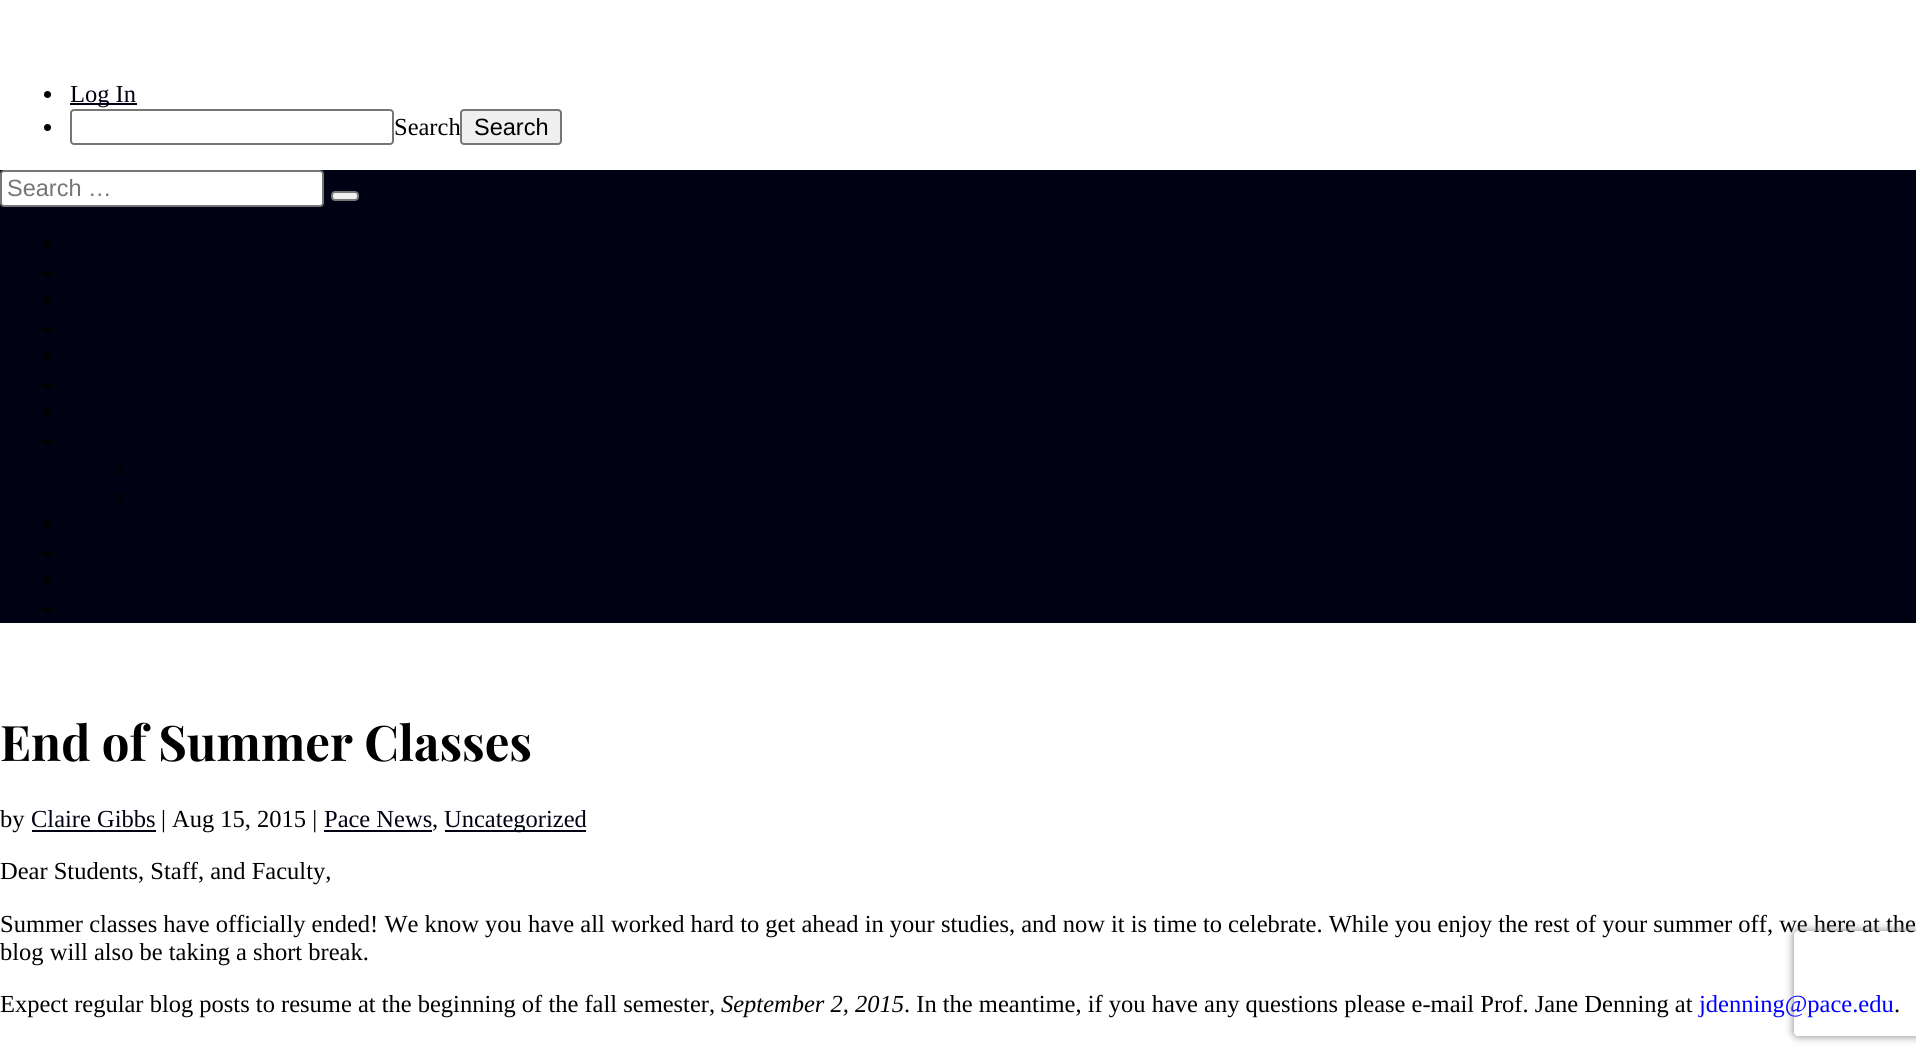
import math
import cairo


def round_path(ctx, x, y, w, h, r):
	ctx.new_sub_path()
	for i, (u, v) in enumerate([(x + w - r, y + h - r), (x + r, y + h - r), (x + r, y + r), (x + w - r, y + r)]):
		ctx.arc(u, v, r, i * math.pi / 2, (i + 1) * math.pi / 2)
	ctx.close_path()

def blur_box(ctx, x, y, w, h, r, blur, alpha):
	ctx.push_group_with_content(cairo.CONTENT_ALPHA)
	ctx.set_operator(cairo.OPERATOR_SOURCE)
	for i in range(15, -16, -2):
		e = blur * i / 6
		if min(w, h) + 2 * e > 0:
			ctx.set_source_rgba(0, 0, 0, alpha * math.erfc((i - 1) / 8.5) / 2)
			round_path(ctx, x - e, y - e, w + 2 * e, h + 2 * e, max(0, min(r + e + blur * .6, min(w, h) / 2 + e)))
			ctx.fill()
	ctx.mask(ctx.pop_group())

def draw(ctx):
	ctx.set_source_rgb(1, 1, 1)
	ctx.paint()
	ctx.set_source_rgb(0, 0, 0)
	ctx.arc(47.5, 94.5, 3.5, 0, 2 * math.pi)
	ctx.fill()
	ctx.set_source_rgb(0, 0.004, 0.078)
	ctx.rectangle(70, 103, 67, 2)
	ctx.fill()
	ctx.select_font_face('Liberation Serif')
	ctx.set_font_size(24.5)
	ctx.move_to(70, 102)
	ctx.show_text('Log In')
	ctx.set_source_rgb(0, 0, 0)
	ctx.new_path()
	ctx.arc(47.5, 127.5, 3.5, 0, 2 * math.pi)
	ctx.fill()
	round_path(ctx, 71, 110, 322, 34, 3)
	ctx.set_source_rgb(0.463, 0.463, 0.463)
	ctx.stroke()
	ctx.set_source_rgb(0, 0, 0)
	ctx.move_to(394, 135)
	ctx.show_text('Search')
	ctx.set_source_rgb(0.937, 0.937, 0.937)
	round_path(ctx, 461, 110, 100, 34, 3)
	ctx.fill_preserve()
	ctx.set_source_rgb(0.463, 0.463, 0.463)
	ctx.stroke()
	ctx.select_font_face('Liberation Sans')
	ctx.set_font_size(23.5)
	ctx.set_source_rgb(0, 0, 0)
	ctx.move_to(474, 135)
	ctx.show_text('Search')
	ctx.set_source_rgb(0, 0.004, 0.078)
	ctx.rectangle(0, 170, 1916, 453)
	ctx.fill()
	ctx.set_source_rgb(1, 1, 1)
	round_path(ctx, 1, 171, 322, 35, 3)
	ctx.fill_preserve()
	ctx.set_source_rgb(0.463, 0.463, 0.463)
	ctx.stroke()
	ctx.set_source_rgb(0.459, 0.459, 0.459)
	ctx.move_to(7, 196)
	ctx.show_text('Search …')
	ctx.set_source_rgb(0.937, 0.937, 0.937)
	round_path(ctx, 332, 192, 26, 8, 3)
	ctx.fill_preserve()
	ctx.set_source_rgb(0.463, 0.463, 0.463)
	ctx.stroke()
	ctx.set_source_rgb(0, 0, 0)
	ctx.arc(47.5, 245.5, 3.5, 0, 2 * math.pi)
	ctx.fill()
	ctx.arc(47.5, 273.5, 3.5, 0, 2 * math.pi)
	ctx.fill()
	ctx.arc(47.5, 301.5, 3.5, 0, 2 * math.pi)
	ctx.fill()
	ctx.arc(47.5, 329.5, 3.5, 0, 2 * math.pi)
	ctx.fill()
	ctx.arc(47.5, 357.5, 3.5, 0, 2 * math.pi)
	ctx.fill()
	ctx.arc(47.5, 385.5, 3.5, 0, 2 * math.pi)
	ctx.fill()
	ctx.arc(47.5, 413.5, 3.5, 0, 2 * math.pi)
	ctx.fill()
	ctx.arc(47.5, 441.5, 3.5, 0, 2 * math.pi)
	ctx.fill()
	round_path(ctx, 115, 467, 7, 6, 3)
	ctx.stroke()
	round_path(ctx, 115, 495, 7, 6, 3)
	ctx.stroke()
	ctx.arc(47.5, 525.5, 3.5, 0, 2 * math.pi)
	ctx.fill()
	ctx.arc(47.5, 553.5, 3.5, 0, 2 * math.pi)
	ctx.fill()
	ctx.arc(47.5, 581.5, 3.5, 0, 2 * math.pi)
	ctx.fill()
	ctx.arc(47.5, 609.5, 3.5, 0, 2 * math.pi)
	ctx.fill()
	ctx.select_font_face('Playfair Display', cairo.FONT_SLANT_NORMAL, cairo.FONT_WEIGHT_BOLD)
	ctx.set_font_size(49)
	ctx.move_to(0, 761)
	ctx.show_text('End of Summer Classes')
	ctx.select_font_face('Liberation Serif')
	ctx.set_font_size(24.5)
	ctx.move_to(0, 827)
	ctx.show_text('by')
	ctx.set_source_rgb(0, 0.004, 0.078)
	ctx.move_to(31, 827)
	ctx.show_text('Claire Gibbs')
	ctx.rectangle(32, 830, 124, 2)
	ctx.fill()
	ctx.set_source_rgb(0, 0, 0)
	ctx.move_to(161, 827)
	ctx.show_text('| Aug 15, 2015 |')
	ctx.set_source_rgb(0, 0.004, 0.078)
	ctx.move_to(324, 827)
	ctx.show_text('Pace News')
	ctx.rectangle(324, 830, 108, 2)
	ctx.fill()
	ctx.set_source_rgb(0, 0, 0)
	ctx.move_to(432, 827)
	ctx.show_text(',')
	ctx.set_source_rgb(0, 0.004, 0.078)
	ctx.rectangle(445, 830, 141, 2)
	ctx.fill()
	ctx.move_to(444, 827)
	ctx.show_text('Uncategorized')
	ctx.set_source_rgb(0, 0, 0)
	for x, y, s in [
		(0, 879, 'Dear Students, Staff, and Faculty,'),
		(0, 932, 'Summer classes have officially ended! We know you have all worked hard to get ahead in your studies, and now it is time to celebrate. While you enjoy the rest of your summer off, we here at the'),
		(0, 960, 'blog will also be taking a short break.'),
		(0, 1012, 'Expect regular blog posts to resume at the beginning of the fall semester,'),
	]:
		ctx.move_to(x, y)
		ctx.show_text(s)
	ctx.select_font_face('Liberation Serif', cairo.FONT_SLANT_ITALIC)
	ctx.move_to(721, 1012)
	ctx.show_text('September 2, 2015')
	ctx.select_font_face('Liberation Serif')
	ctx.move_to(904, 1012)
	ctx.show_text('. In the meantime, if you have any questions please e-mail Prof. Jane Denning at')
	ctx.set_source_rgb(0, 0, 1)
	ctx.move_to(1699, 1012)
	ctx.show_text('jdenning@pace.edu')
	ctx.set_source_rgb(0, 0, 0)
	ctx.move_to(1894, 1012)
	ctx.show_text('.')
	ctx.save()
	ctx.set_fill_rule(cairo.FILL_RULE_EVEN_ODD)
	ctx.new_path()
	ctx.move_to(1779, 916)
	ctx.line_to(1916, 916)
	ctx.line_to(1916, 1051)
	ctx.line_to(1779, 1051)
	ctx.close_path()
	ctx.move_to(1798, 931)
	ctx.line_to(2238, 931)
	ctx.curve_to(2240, 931, 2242, 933, 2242, 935)
	ctx.line_to(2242, 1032)
	ctx.curve_to(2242, 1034, 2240, 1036, 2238, 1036)
	ctx.line_to(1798, 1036)
	ctx.curve_to(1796, 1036, 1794, 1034, 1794, 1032)
	ctx.line_to(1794, 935)
	ctx.curve_to(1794, 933, 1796, 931, 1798, 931)
	ctx.close_path()
	ctx.clip()
	ctx.set_source_rgb(0.502, 0.502, 0.502)
	blur_box(ctx, 1794, 931, 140, 105, 4, 4.5, 1)
	ctx.restore()


surface = cairo.ImageSurface(cairo.FORMAT_RGB24, 1916, 1059)
ctx = cairo.Context(surface)
options = cairo.FontOptions()
options.set_hint_metrics(cairo.HINT_METRICS_OFF)
options.set_hint_style(cairo.HINT_STYLE_NONE)
ctx.set_font_options(options)
ctx.set_miter_limit(4)
draw(ctx)
surface.write_to_png('image.png')
